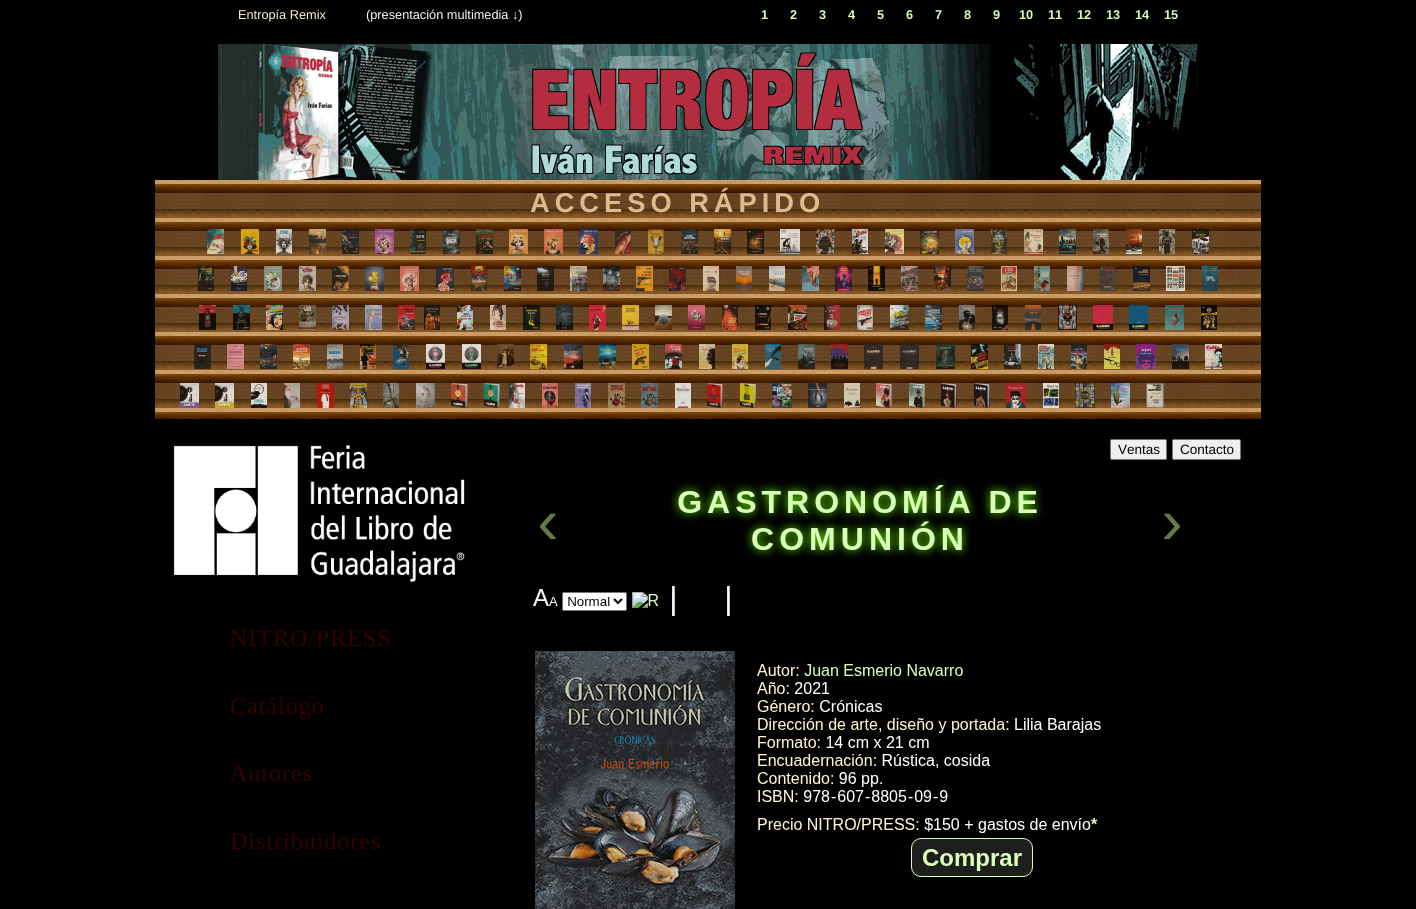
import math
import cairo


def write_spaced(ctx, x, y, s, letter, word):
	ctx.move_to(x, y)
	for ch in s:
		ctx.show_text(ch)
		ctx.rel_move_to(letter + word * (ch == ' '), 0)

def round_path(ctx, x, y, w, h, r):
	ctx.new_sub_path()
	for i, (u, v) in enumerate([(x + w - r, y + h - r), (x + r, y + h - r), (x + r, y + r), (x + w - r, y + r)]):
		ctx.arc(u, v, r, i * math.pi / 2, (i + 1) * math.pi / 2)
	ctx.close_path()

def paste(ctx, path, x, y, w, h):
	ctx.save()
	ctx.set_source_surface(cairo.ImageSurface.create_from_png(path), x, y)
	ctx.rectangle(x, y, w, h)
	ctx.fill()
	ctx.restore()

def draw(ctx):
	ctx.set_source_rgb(0, 0, 0)
	ctx.paint()
	ctx.select_font_face('Liberation Sans')
	ctx.set_font_size(12.75)
	ctx.set_source_rgb(1, 0.965, 0.824)
	ctx.move_to(238, 19)
	ctx.show_text('Entropía Remix')
	ctx.set_source_rgb(1, 1, 1)
	ctx.move_to(366, 19)
	ctx.show_text('(presentación multimedia ↓)')
	ctx.select_font_face('Liberation Sans', cairo.FONT_SLANT_NORMAL, cairo.FONT_WEIGHT_BOLD)
	ctx.set_source_rgb(0.851, 1, 0.733)
	for x, y, s in [
		(761, 19, '1'),
		(790, 19, '2'),
		(819, 19, '3'),
		(848, 19, '4'),
		(877, 19, '5'),
		(906, 19, '6'),
		(935, 19, '7'),
		(964, 19, '8'),
		(993, 19, '9'),
		(1019, 19, '10'),
		(1048, 19, '11'),
		(1077, 19, '12'),
		(1106, 19, '13'),
		(1135, 19, '14'),
		(1164, 19, '15'),
	]:
		ctx.move_to(x, y)
		ctx.show_text(s)
	paste(ctx, 'media/1.png', 218, 44, 980, 136)
	paste(ctx, 'media/2.png', 155, 180, 1106, 239)
	ctx.set_font_size(27.25)
	ctx.set_source_rgb(0.878, 0.725, 0.549)
	write_spaced(ctx, 530, 212, 'ACCESO RÁPIDO', 5, 0)
	paste(ctx, 'media/3.png', 207, 229, 17, 25)
	paste(ctx, 'media/4.png', 241, 229, 18, 25)
	paste(ctx, 'media/5.png', 276, 229, 16, 25)
	paste(ctx, 'media/6.png', 309, 229, 17, 25)
	paste(ctx, 'media/7.png', 342, 229, 17, 25)
	paste(ctx, 'media/8.png', 375, 229, 19, 25)
	paste(ctx, 'media/9.png', 410, 229, 16, 25)
	paste(ctx, 'media/10.png', 443, 229, 17, 25)
	paste(ctx, 'media/11.png', 476, 229, 17, 25)
	paste(ctx, 'media/12.png', 509, 229, 19, 25)
	paste(ctx, 'media/13.png', 544, 229, 19, 25)
	paste(ctx, 'media/14.png', 579, 229, 19, 25)
	paste(ctx, 'media/15.png', 615, 229, 16, 25)
	paste(ctx, 'media/16.png', 648, 229, 16, 25)
	paste(ctx, 'media/17.png', 681, 229, 17, 25)
	paste(ctx, 'media/18.png', 714, 229, 17, 25)
	paste(ctx, 'media/19.png', 747, 229, 17, 25)
	paste(ctx, 'media/20.png', 780, 229, 20, 25)
	paste(ctx, 'media/21.png', 816, 229, 19, 25)
	paste(ctx, 'media/22.png', 852, 229, 16, 25)
	paste(ctx, 'media/23.png', 885, 229, 19, 25)
	paste(ctx, 'media/24.png', 920, 229, 19, 25)
	paste(ctx, 'media/25.png', 955, 229, 19, 25)
	paste(ctx, 'media/26.png', 991, 229, 16, 25)
	paste(ctx, 'media/27.png', 1024, 229, 19, 25)
	paste(ctx, 'media/28.png', 1059, 229, 17, 25)
	paste(ctx, 'media/29.png', 1093, 229, 16, 25)
	paste(ctx, 'media/30.png', 1126, 229, 16, 25)
	paste(ctx, 'media/31.png', 1159, 229, 16, 25)
	paste(ctx, 'media/32.png', 1192, 229, 17, 25)
	paste(ctx, 'media/33.png', 198, 266, 16, 25)
	paste(ctx, 'media/34.png', 231, 266, 16, 25)
	paste(ctx, 'media/35.png', 264, 266, 18, 25)
	paste(ctx, 'media/36.png', 299, 266, 17, 25)
	paste(ctx, 'media/37.png', 332, 266, 17, 25)
	paste(ctx, 'media/38.png', 365, 266, 19, 25)
	paste(ctx, 'media/39.png', 400, 266, 19, 25)
	paste(ctx, 'media/40.png', 436, 266, 18, 25)
	paste(ctx, 'media/41.png', 471, 266, 16, 25)
	paste(ctx, 'media/42.png', 504, 266, 17, 25)
	paste(ctx, 'media/43.png', 537, 266, 17, 25)
	paste(ctx, 'media/44.png', 570, 266, 17, 25)
	paste(ctx, 'media/45.png', 603, 266, 17, 25)
	paste(ctx, 'media/46.png', 636, 266, 17, 25)
	paste(ctx, 'media/47.png', 669, 266, 17, 25)
	paste(ctx, 'media/48.png', 703, 266, 16, 25)
	paste(ctx, 'media/49.png', 736, 266, 16, 25)
	paste(ctx, 'media/50.png', 769, 266, 16, 25)
	paste(ctx, 'media/51.png', 802, 266, 17, 25)
	paste(ctx, 'media/52.png', 835, 266, 17, 25)
	paste(ctx, 'media/53.png', 868, 266, 17, 25)
	paste(ctx, 'media/54.png', 901, 266, 17, 25)
	paste(ctx, 'media/55.png', 934, 266, 17, 25)
	paste(ctx, 'media/56.png', 967, 266, 17, 25)
	paste(ctx, 'media/57.png', 1001, 266, 16, 25)
	paste(ctx, 'media/58.png', 1034, 266, 16, 25)
	paste(ctx, 'media/59.png', 1067, 266, 16, 25)
	paste(ctx, 'media/60.png', 1100, 266, 16, 25)
	paste(ctx, 'media/61.png', 1133, 266, 17, 25)
	paste(ctx, 'media/62.png', 1166, 266, 19, 25)
	paste(ctx, 'media/63.png', 1202, 266, 16, 25)
	paste(ctx, 'media/64.png', 199, 305, 17, 25)
	paste(ctx, 'media/65.png', 233, 305, 17, 25)
	paste(ctx, 'media/66.png', 266, 305, 17, 25)
	paste(ctx, 'media/67.png', 299, 305, 17, 25)
	paste(ctx, 'media/68.png', 332, 305, 17, 25)
	paste(ctx, 'media/69.png', 365, 305, 17, 25)
	paste(ctx, 'media/70.png', 398, 305, 17, 25)
	paste(ctx, 'media/71.png', 424, 305, 16, 25)
	paste(ctx, 'media/72.png', 457, 305, 16, 25)
	paste(ctx, 'media/73.png', 490, 305, 16, 25)
	paste(ctx, 'media/74.png', 523, 305, 17, 25)
	paste(ctx, 'media/75.png', 556, 305, 17, 25)
	paste(ctx, 'media/76.png', 589, 305, 17, 25)
	paste(ctx, 'media/77.png', 622, 305, 17, 25)
	paste(ctx, 'media/78.png', 655, 305, 17, 25)
	paste(ctx, 'media/79.png', 688, 305, 17, 25)
	paste(ctx, 'media/80.png', 722, 305, 16, 25)
	paste(ctx, 'media/81.png', 755, 305, 16, 25)
	paste(ctx, 'media/82.png', 788, 305, 19, 25)
	paste(ctx, 'media/83.png', 824, 305, 16, 25)
	paste(ctx, 'media/84.png', 857, 305, 16, 25)
	paste(ctx, 'media/85.png', 890, 305, 19, 25)
	paste(ctx, 'media/86.png', 925, 305, 17, 25)
	paste(ctx, 'media/87.png', 959, 305, 16, 25)
	paste(ctx, 'media/88.png', 992, 305, 16, 25)
	paste(ctx, 'media/89.png', 1025, 305, 16, 25)
	paste(ctx, 'media/90.png', 1058, 305, 19, 25)
	paste(ctx, 'media/91.png', 1093, 305, 20, 25)
	paste(ctx, 'media/92.png', 1129, 305, 19, 25)
	paste(ctx, 'media/93.png', 1165, 305, 19, 25)
	paste(ctx, 'media/94.png', 1201, 305, 16, 25)
	paste(ctx, 'media/95.png', 194, 344, 17, 25)
	paste(ctx, 'media/96.png', 227, 344, 17, 25)
	paste(ctx, 'media/97.png', 260, 344, 17, 25)
	paste(ctx, 'media/98.png', 293, 344, 17, 25)
	paste(ctx, 'media/99.png', 327, 344, 16, 25)
	paste(ctx, 'media/100.png', 360, 344, 16, 25)
	paste(ctx, 'media/101.png', 393, 344, 16, 25)
	paste(ctx, 'media/102.png', 426, 344, 19, 25)
	paste(ctx, 'media/103.png', 462, 344, 19, 25)
	paste(ctx, 'media/104.png', 497, 344, 17, 25)
	paste(ctx, 'media/105.png', 530, 344, 17, 25)
	paste(ctx, 'media/106.png', 564, 344, 19, 25)
	paste(ctx, 'media/107.png', 599, 344, 17, 25)
	paste(ctx, 'media/108.png', 632, 344, 17, 25)
	paste(ctx, 'media/109.png', 665, 344, 17, 25)
	paste(ctx, 'media/110.png', 699, 344, 16, 25)
	paste(ctx, 'media/111.png', 732, 344, 16, 25)
	paste(ctx, 'media/112.png', 765, 344, 16, 25)
	paste(ctx, 'media/113.png', 798, 344, 17, 25)
	paste(ctx, 'media/114.png', 831, 344, 17, 25)
	paste(ctx, 'media/115.png', 864, 344, 19, 25)
	paste(ctx, 'media/116.png', 900, 344, 19, 25)
	paste(ctx, 'media/117.png', 936, 344, 19, 25)
	paste(ctx, 'media/118.png', 971, 344, 17, 25)
	paste(ctx, 'media/119.png', 1004, 344, 17, 25)
	paste(ctx, 'media/120.png', 1038, 344, 16, 25)
	paste(ctx, 'media/121.png', 1071, 344, 16, 25)
	paste(ctx, 'media/122.png', 1104, 344, 16, 25)
	paste(ctx, 'media/123.png', 1136, 344, 20, 25)
	paste(ctx, 'media/124.png', 1172, 344, 17, 25)
	paste(ctx, 'media/125.png', 1205, 344, 17, 25)
	paste(ctx, 'media/126.png', 180, 383, 19, 25)
	paste(ctx, 'media/127.png', 215, 383, 19, 25)
	paste(ctx, 'media/128.png', 251, 383, 16, 25)
	paste(ctx, 'media/129.png', 284, 383, 16, 25)
	paste(ctx, 'media/130.png', 317, 383, 17, 25)
	paste(ctx, 'media/131.png', 350, 383, 17, 25)
	paste(ctx, 'media/132.png', 383, 383, 16, 25)
	paste(ctx, 'media/133.png', 416, 383, 19, 25)
	paste(ctx, 'media/134.png', 451, 383, 17, 25)
	paste(ctx, 'media/135.png', 484, 383, 16, 25)
	paste(ctx, 'media/136.png', 509, 383, 16, 25)
	paste(ctx, 'media/137.png', 542, 383, 16, 25)
	paste(ctx, 'media/138.png', 575, 383, 16, 25)
	paste(ctx, 'media/139.png', 608, 383, 17, 25)
	paste(ctx, 'media/140.png', 641, 383, 17, 25)
	paste(ctx, 'media/141.png', 675, 383, 16, 25)
	paste(ctx, 'media/142.png', 707, 383, 16, 25)
	paste(ctx, 'media/143.png', 740, 383, 16, 25)
	paste(ctx, 'media/144.png', 772, 383, 20, 25)
	paste(ctx, 'media/145.png', 808, 383, 19, 25)
	paste(ctx, 'media/146.png', 844, 383, 16, 25)
	paste(ctx, 'media/147.png', 876, 383, 16, 25)
	paste(ctx, 'media/148.png', 909, 383, 16, 25)
	paste(ctx, 'media/149.png', 941, 383, 16, 25)
	paste(ctx, 'media/150.png', 974, 383, 16, 25)
	paste(ctx, 'media/151.png', 1006, 383, 20, 25)
	paste(ctx, 'media/152.png', 1043, 383, 16, 25)
	paste(ctx, 'media/153.png', 1075, 383, 20, 25)
	paste(ctx, 'media/154.png', 1111, 383, 19, 25)
	paste(ctx, 'media/155.png', 1146, 383, 18, 25)
	ctx.set_source_rgb(0.937, 0.937, 0.937)
	round_path(ctx, 1110.5, 439.5, 56, 20, 1.5)
	ctx.fill_preserve()
	ctx.set_source_rgb(0.463, 0.463, 0.463)
	ctx.set_line_width(1)
	ctx.stroke()
	ctx.select_font_face('Liberation Sans')
	ctx.set_font_size(13.5)
	ctx.set_source_rgb(0, 0, 0)
	ctx.move_to(1118, 454)
	ctx.show_text('Ventas')
	ctx.set_source_rgb(0.937, 0.937, 0.937)
	round_path(ctx, 1172.5, 439.5, 68, 20, 1.5)
	ctx.fill_preserve()
	ctx.set_source_rgb(0.463, 0.463, 0.463)
	ctx.stroke()
	ctx.set_source_rgb(0, 0, 0)
	ctx.move_to(1180, 454)
	ctx.show_text('Contacto')
	paste(ctx, 'media/156.png', 533, 478, 647, 431)
	paste(ctx, 'media/157.png', 173, 445, 292, 137)
	ctx.select_font_face('Liberation Serif')
	ctx.set_font_size(24)
	ctx.set_source_rgb(0.2, 0, 0)
	for x, y, s in [
		(230, 646, 'NITRO/PRESS'),
		(230, 714, 'Catálogo'),
		(230, 781, 'Autores'),
		(230, 849, 'Distribuidores'),
	]:
		write_spaced(ctx, x, y, s, 1, 0)


surface = cairo.ImageSurface(cairo.FORMAT_RGB24, 1416, 909)
ctx = cairo.Context(surface)
options = cairo.FontOptions()
options.set_hint_metrics(cairo.HINT_METRICS_OFF)
options.set_hint_style(cairo.HINT_STYLE_NONE)
ctx.set_font_options(options)
ctx.set_miter_limit(4)
draw(ctx)
surface.write_to_png('image.png')
